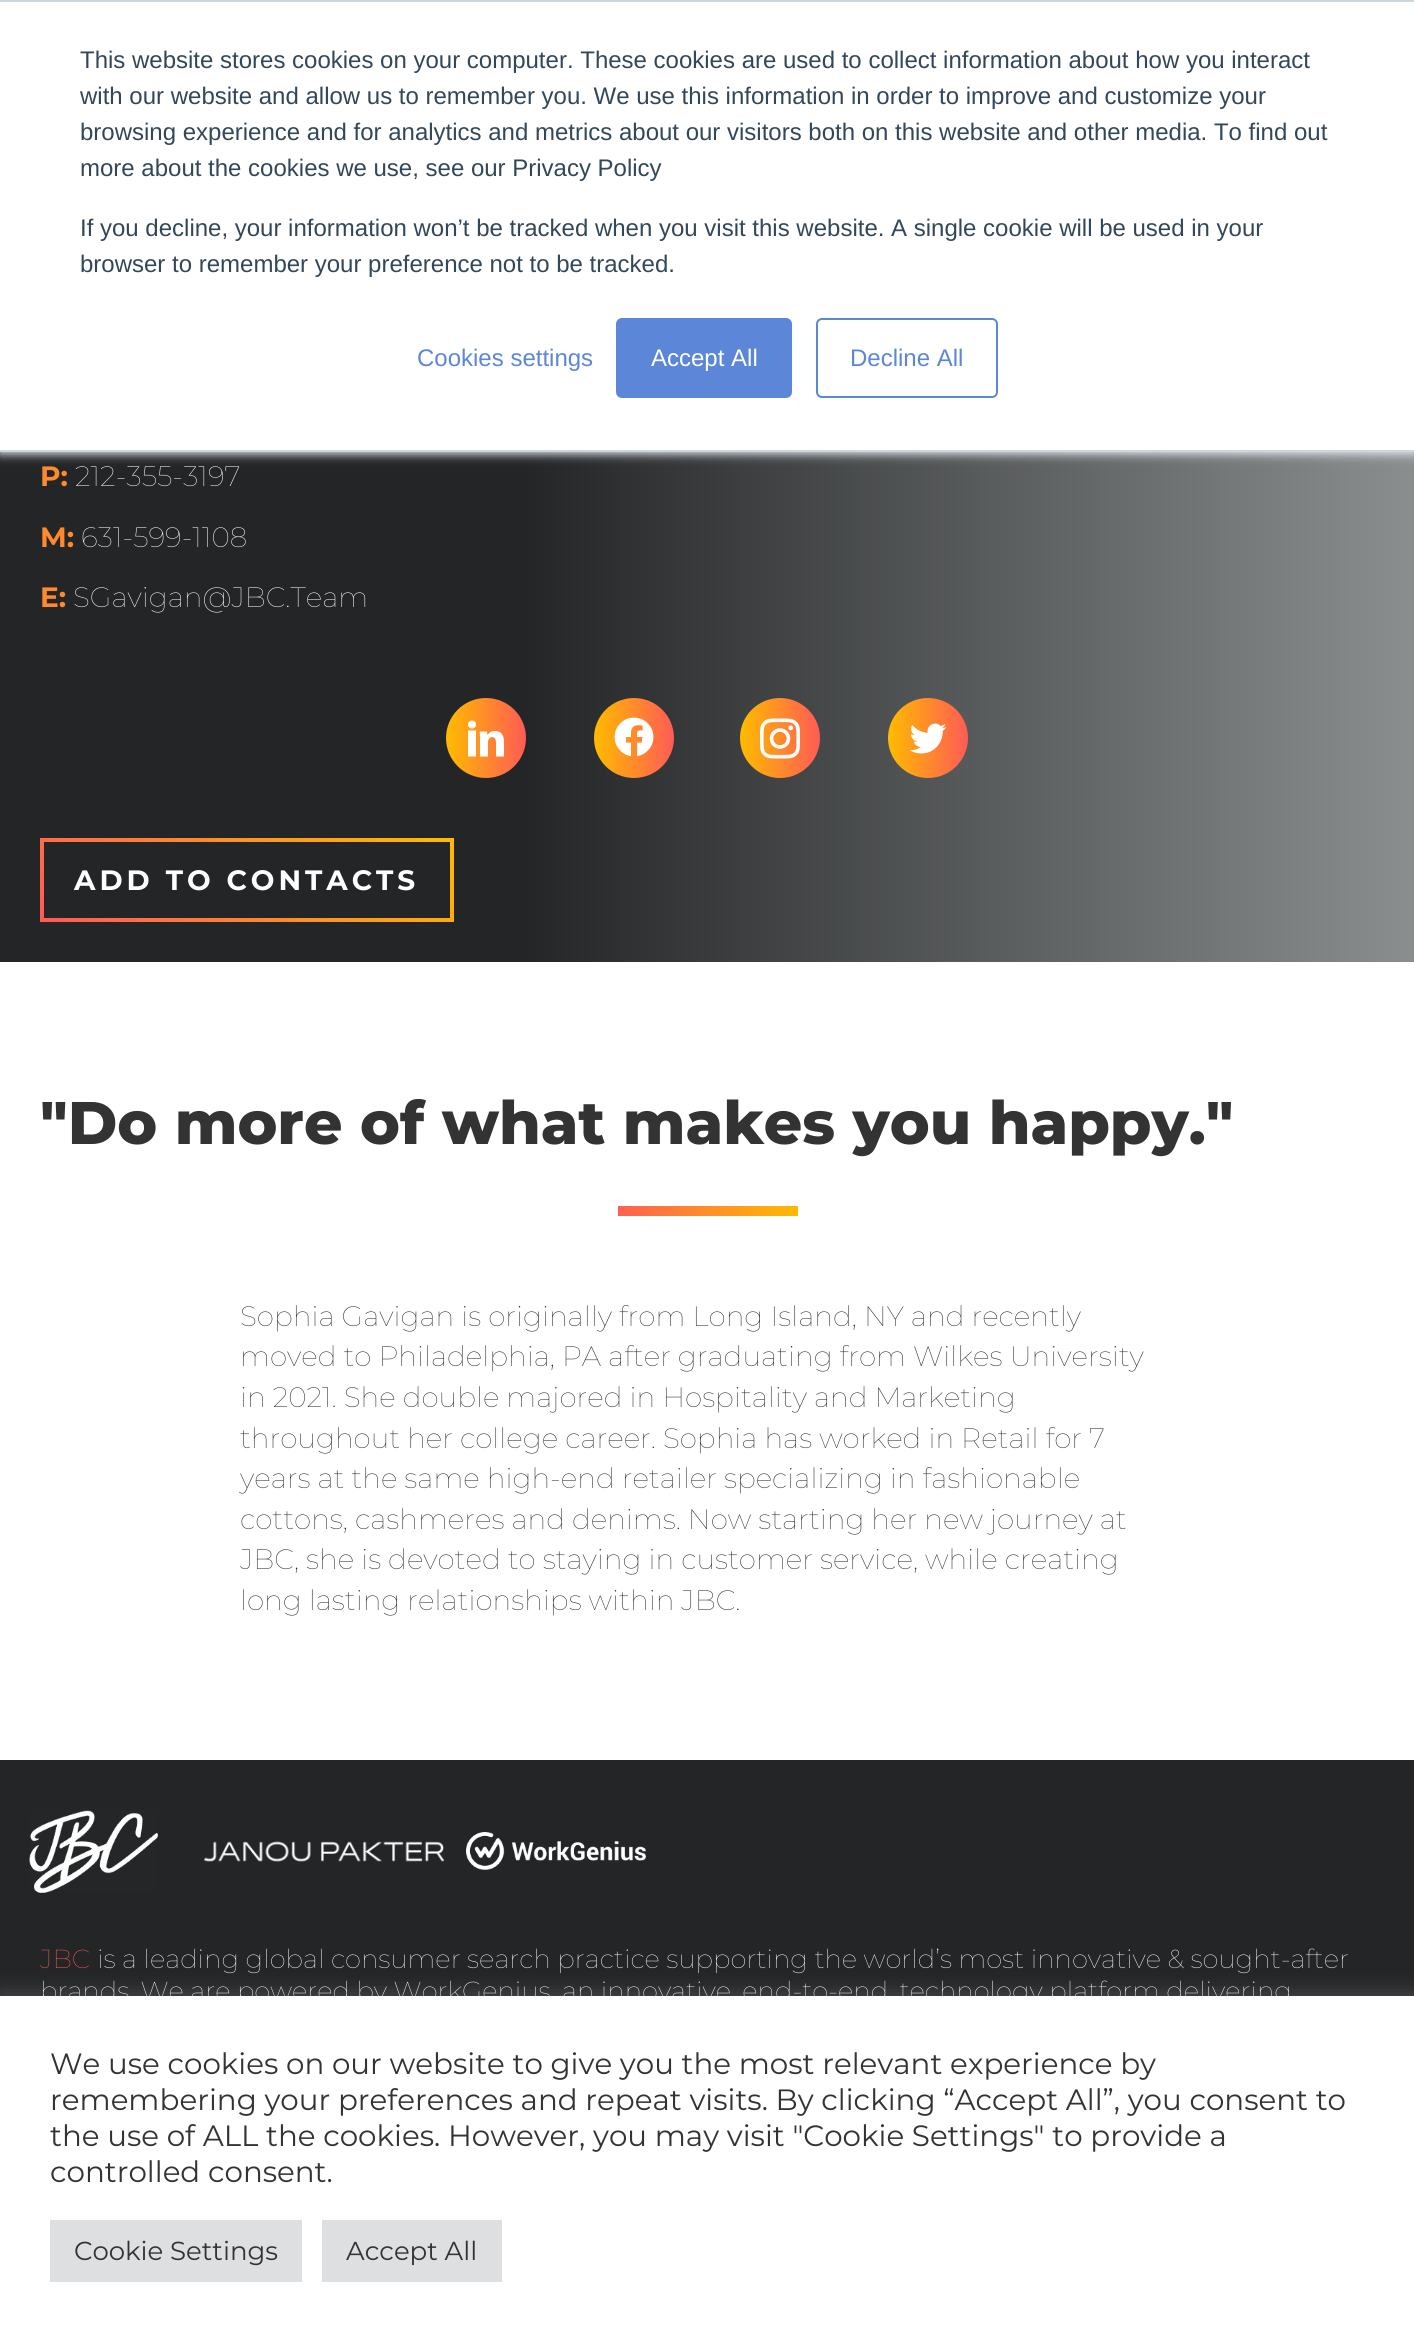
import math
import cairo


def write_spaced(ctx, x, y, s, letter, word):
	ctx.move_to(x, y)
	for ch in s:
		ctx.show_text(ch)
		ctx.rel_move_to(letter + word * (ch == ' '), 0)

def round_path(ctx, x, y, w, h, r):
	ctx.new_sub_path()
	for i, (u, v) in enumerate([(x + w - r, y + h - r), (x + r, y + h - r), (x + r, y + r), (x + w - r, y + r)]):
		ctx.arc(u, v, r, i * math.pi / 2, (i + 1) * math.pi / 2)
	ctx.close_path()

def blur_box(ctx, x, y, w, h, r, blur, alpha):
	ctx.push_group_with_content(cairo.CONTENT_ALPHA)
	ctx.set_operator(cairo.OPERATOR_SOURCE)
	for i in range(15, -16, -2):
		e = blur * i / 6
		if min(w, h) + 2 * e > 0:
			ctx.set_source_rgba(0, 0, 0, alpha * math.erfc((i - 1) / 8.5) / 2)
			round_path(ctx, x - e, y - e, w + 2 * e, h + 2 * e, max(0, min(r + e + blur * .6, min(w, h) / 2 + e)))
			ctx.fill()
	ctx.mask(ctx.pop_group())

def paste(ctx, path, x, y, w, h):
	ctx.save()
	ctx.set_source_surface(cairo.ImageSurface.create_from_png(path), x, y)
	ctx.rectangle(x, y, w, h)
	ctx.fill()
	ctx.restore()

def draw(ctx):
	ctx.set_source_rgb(1, 1, 1)
	ctx.paint()
	gradient = cairo.LinearGradient(0, 570, 1414, 570)
	gradient.add_color_stop_rgba(0.37, 0.137, 0.145, 0.153, 1)
	gradient.add_color_stop_rgba(1, 0.545, 0.557, 0.557, 1)
	ctx.set_source(gradient)
	ctx.rectangle(0, 452, 1414, 510)
	ctx.fill()
	ctx.set_source_rgb(0.918, 0.941, 0.965)
	blur_box(ctx, 0, 2, 1414, 452, 0, 5, 1)
	ctx.set_source_rgb(1, 1, 1)
	ctx.rectangle(0, 2, 1414, 448)
	ctx.fill()
	ctx.set_source_rgb(0.796, 0.839, 0.886)
	ctx.rectangle(0, 0, 1414, 2)
	ctx.rectangle(0, 450, 1414, 2)
	ctx.fill()
	ctx.select_font_face('Liberation Sans')
	ctx.set_font_size(24)
	ctx.set_source_rgb(0.2, 0.278, 0.357)
	for x, y, s in [
		(80, 68, 'This website stores cookies on your computer. These cookies are used to collect information about how you interact'),
		(80, 104, 'with our website and allow us to remember you. We use this information in order to improve and customize your'),
		(80, 140, 'browsing experience and for analytics and metrics about our visitors both on this website and other media. To find out'),
		(80, 176, 'more about the cookies we use, see our Privacy Policy'),
		(80, 236, 'If you decline, your information won’t be tracked when you visit this website. A single cookie will be used in your'),
		(80, 272, 'browser to remember your preference not to be tracked.'),
	]:
		ctx.move_to(x, y)
		ctx.show_text(s)
	ctx.set_source_rgb(0.361, 0.525, 0.843)
	ctx.move_to(417, 366)
	ctx.show_text('Cookies settings')
	round_path(ctx, 617, 319, 174, 78, 5)
	ctx.fill_preserve()
	ctx.stroke()
	ctx.set_source_rgb(1, 1, 1)
	ctx.move_to(651, 366)
	ctx.show_text('Accept All')
	round_path(ctx, 817, 319, 180, 78, 5)
	ctx.set_source_rgb(0.361, 0.525, 0.843)
	ctx.stroke()
	ctx.move_to(850, 366)
	ctx.show_text('Decline All')
	ctx.select_font_face('Montserrat', cairo.FONT_SLANT_NORMAL, cairo.FONT_WEIGHT_BOLD)
	ctx.set_font_size(28)
	ctx.set_source_rgb(1, 0.541, 0.169)
	ctx.move_to(40, 486)
	ctx.show_text('P:')
	ctx.select_font_face('Montserrat Thin')
	ctx.set_source_rgb(1, 1, 1)
	ctx.move_to(75, 486)
	ctx.show_text('212-355-3197')
	ctx.select_font_face('Montserrat', cairo.FONT_SLANT_NORMAL, cairo.FONT_WEIGHT_BOLD)
	ctx.set_source_rgb(1, 0.541, 0.169)
	ctx.move_to(40, 547)
	ctx.show_text('M:')
	ctx.select_font_face('Montserrat Thin')
	ctx.set_source_rgb(1, 1, 1)
	ctx.move_to(81, 547)
	ctx.show_text('631-599-1108')
	ctx.select_font_face('Montserrat', cairo.FONT_SLANT_NORMAL, cairo.FONT_WEIGHT_BOLD)
	ctx.set_source_rgb(1, 0.541, 0.169)
	ctx.move_to(40, 607)
	ctx.show_text('E:')
	ctx.select_font_face('Montserrat Thin')
	ctx.set_source_rgb(1, 1, 1)
	ctx.move_to(73, 607)
	ctx.show_text('SGavigan@JBC.Team')
	gradient = cairo.LinearGradient(446, 738, 526, 738)
	gradient.add_color_stop_rgba(0, 1, 0.733, 0, 1)
	gradient.add_color_stop_rgba(1, 1, 0.357, 0.333, 1)
	ctx.set_source(gradient)
	ctx.new_path()
	ctx.arc(486, 738, 40, 0, 2 * math.pi)
	ctx.fill()
	paste(ctx, 'media/1.png', 468, 720, 36, 37)
	gradient = cairo.LinearGradient(594, 738, 674, 738)
	gradient.add_color_stop_rgba(0, 1, 0.733, 0, 1)
	gradient.add_color_stop_rgba(1, 1, 0.357, 0.333, 1)
	ctx.set_source(gradient)
	ctx.arc(634, 738, 40, 0, 2 * math.pi)
	ctx.fill()
	paste(ctx, 'media/2.png', 614, 717, 40, 40)
	gradient = cairo.LinearGradient(740, 738, 820, 738)
	gradient.add_color_stop_rgba(0, 1, 0.733, 0, 1)
	gradient.add_color_stop_rgba(1, 1, 0.357, 0.333, 1)
	ctx.set_source(gradient)
	ctx.arc(780, 738, 40, 0, 2 * math.pi)
	ctx.fill()
	paste(ctx, 'media/3.png', 760, 718, 40, 41)
	gradient = cairo.LinearGradient(888, 738, 968, 738)
	gradient.add_color_stop_rgba(0, 1, 0.733, 0, 1)
	gradient.add_color_stop_rgba(1, 1, 0.357, 0.333, 1)
	ctx.set_source(gradient)
	ctx.arc(928, 738, 40, 0, 2 * math.pi)
	ctx.fill()
	paste(ctx, 'media/4.png', 909, 723, 38, 31)
	paste(ctx, 'media/5.png', 40, 838, 414, 84)
	ctx.select_font_face('Montserrat', cairo.FONT_SLANT_NORMAL, cairo.FONT_WEIGHT_BOLD)
	ctx.set_source_rgb(1, 1, 1)
	write_spaced(ctx, 74, 890, 'ADD TO CONTACTS', 4, 0)
	ctx.select_font_face('Montserrat ExtraBold')
	ctx.set_font_size(60)
	ctx.set_source_rgb(0.2, 0.2, 0.2)
	ctx.move_to(40, 1144)
	ctx.show_text('"Do more of what makes you happy."')
	paste(ctx, 'media/6.png', 618, 1206, 180, 10)
	ctx.select_font_face('Montserrat Thin')
	ctx.set_font_size(28)
	ctx.set_source_rgb(0.137, 0.145, 0.153)
	for x, y, s in [
		(240, 1326, 'Sophia Gavigan is originally from Long Island, NY and recently'),
		(240, 1366, 'moved to Philadelphia, PA after graduating from Wilkes University'),
		(240, 1407, 'in 2021. She double majored in Hospitality and Marketing'),
		(240, 1448, 'throughout her college career. Sophia has worked in Retail for 7'),
		(240, 1488, 'years at the same high-end retailer specializing in fashionable'),
		(240, 1529, 'cottons, cashmeres and denims. Now starting her new journey at'),
		(240, 1569, 'JBC, she is devoted to staying in customer service, while creating'),
		(240, 1610, 'long lasting relationships within JBC.'),
	]:
		ctx.move_to(x, y)
		ctx.show_text(s)
	ctx.rectangle(0, 1760, 1414, 236)
	ctx.fill()
	paste(ctx, 'media/7.png', 29, 1810, 129, 83)
	paste(ctx, 'media/8.png', 204, 1841, 240, 21)
	paste(ctx, 'media/9.png', 466, 1832, 180, 38)
	ctx.set_font_size(26)
	ctx.set_source_rgb(1, 0.357, 0.333)
	ctx.move_to(40, 1968)
	ctx.show_text('JBC')
	ctx.set_source_rgb(1, 1, 1)
	for x, y, s in [
		(97, 1968, 'is a leading global consumer search practice supporting the world’s most innovative & sought-after'),
		(40, 2000, 'brands. We are powered by WorkGenius'),
		(562, 2000, 'an innovative, end-to-end, technology platform delivering'),
	]:
		ctx.move_to(x, y)
		ctx.show_text(s)
	ctx.set_source_rgb(0.675, 0.671, 0.671)
	blur_box(ctx, 0, 1994, 1414, 346, 0, 10, 0.3)
	ctx.set_source_rgb(1, 1, 1)
	ctx.rectangle(0, 1996, 1414, 346)
	ctx.fill()
	ctx.select_font_face('Montserrat')
	ctx.set_font_size(29.35)
	ctx.set_source_rgb(0.2, 0.2, 0.2)
	for x, y, s in [
		(50, 2074, 'We use cookies on our website to give you the most relevant experience by'),
		(50, 2110, 'remembering your preferences and repeat visits. By clicking “Accept All”, you consent to'),
		(50, 2146, 'the use of ALL the cookies. However, you may visit "Cookie Settings" to provide a'),
		(50, 2182, 'controlled consent.'),
	]:
		ctx.move_to(x, y)
		ctx.show_text(s)
	ctx.set_source_rgb(0.871, 0.875, 0.878)
	ctx.rectangle(50, 2220, 252, 62)
	ctx.fill()
	ctx.set_font_size(26)
	ctx.set_source_rgb(0.2, 0.2, 0.2)
	ctx.move_to(74, 2260)
	ctx.show_text('Cookie Settings')
	ctx.set_source_rgb(0.871, 0.875, 0.878)
	ctx.rectangle(322, 2220, 180, 62)
	ctx.fill()
	ctx.set_source_rgb(0.2, 0.2, 0.2)
	ctx.move_to(346, 2260)
	ctx.show_text('Accept All')


surface = cairo.ImageSurface(cairo.FORMAT_RGB24, 1414, 2342)
ctx = cairo.Context(surface)
options = cairo.FontOptions()
options.set_hint_metrics(cairo.HINT_METRICS_OFF)
options.set_hint_style(cairo.HINT_STYLE_NONE)
ctx.set_font_options(options)
ctx.set_miter_limit(4)
draw(ctx)
surface.write_to_png('image.png')
